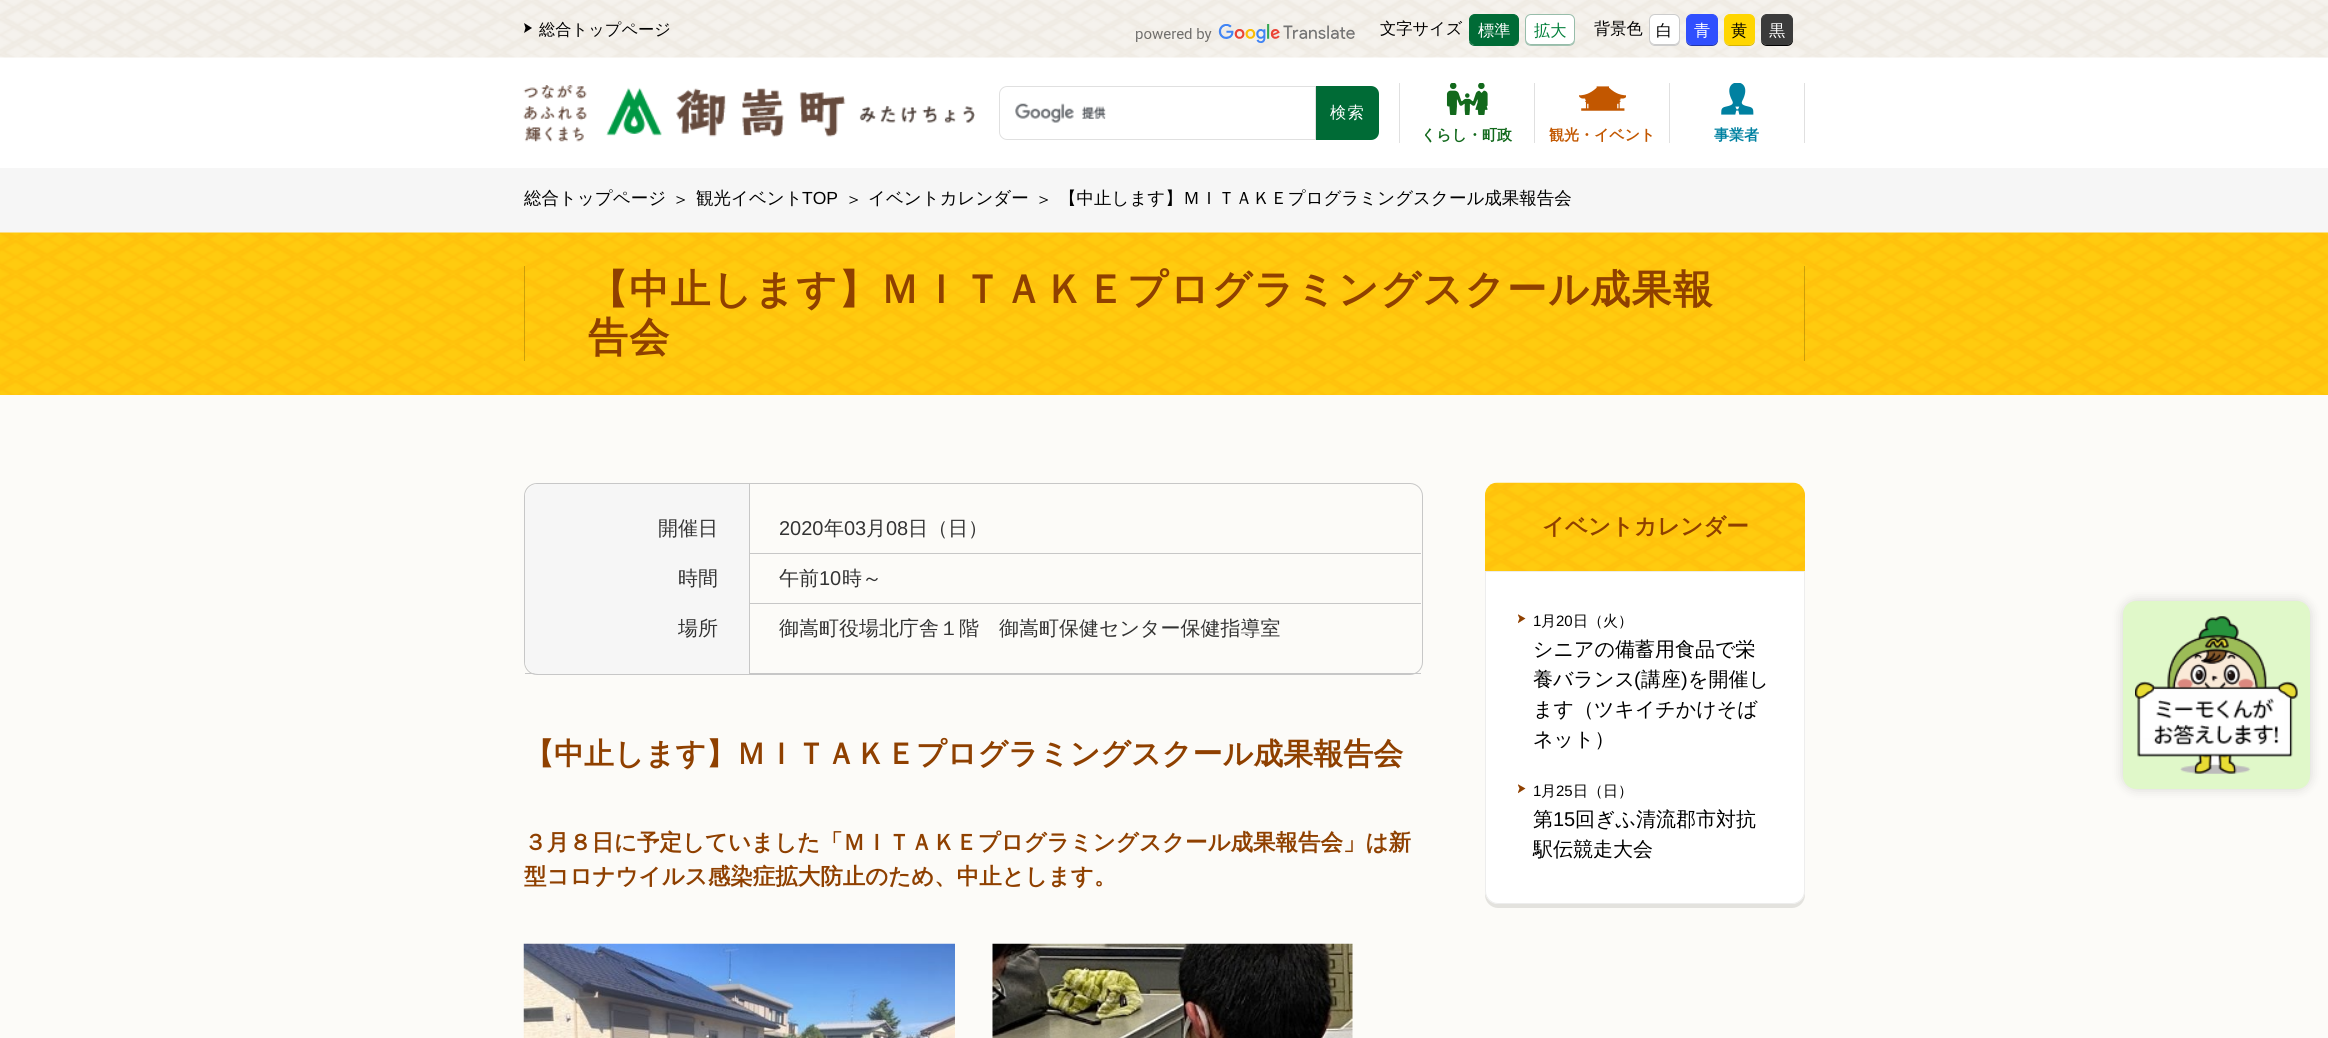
import math
import cairo


def write_spaced(ctx, x, y, s, letter, word):
	ctx.move_to(x, y)
	for ch in s:
		ctx.show_text(ch)
		ctx.rel_move_to(letter + word * (ch == ' '), 0)

def round_path(ctx, x, y, w, h, r):
	ctx.new_sub_path()
	for i, (u, v) in enumerate([(x + w - r, y + h - r), (x + r, y + h - r), (x + r, y + r), (x + w - r, y + r)]):
		ctx.arc(u, v, r, i * math.pi / 2, (i + 1) * math.pi / 2)
	ctx.close_path()

def blur_box(ctx, x, y, w, h, r, blur, alpha):
	ctx.push_group_with_content(cairo.CONTENT_ALPHA)
	ctx.set_operator(cairo.OPERATOR_SOURCE)
	for i in range(15, -16, -2):
		e = blur * i / 6
		if min(w, h) + 2 * e > 0:
			ctx.set_source_rgba(0, 0, 0, alpha * math.erfc((i - 1) / 8.5) / 2)
			round_path(ctx, x - e, y - e, w + 2 * e, h + 2 * e, max(0, min(r + e + blur * .6, min(w, h) / 2 + e)))
			ctx.fill()
	ctx.mask(ctx.pop_group())

def paste(ctx, path, x, y, w, h):
	ctx.save()
	ctx.set_source_surface(cairo.ImageSurface.create_from_png(path), x, y)
	ctx.rectangle(x, y, w, h)
	ctx.fill()
	ctx.restore()

def draw(ctx):
	ctx.set_source_rgb(1, 1, 1)
	ctx.paint()
	paste(ctx, 'media/1.png', 0, 0, 2328, 58)
	ctx.set_source_rgb(0, 0, 0)
	ctx.new_path()
	ctx.move_to(524, 33)
	ctx.line_to(525.5, 28)
	ctx.line_to(524, 23)
	ctx.line_to(532, 28)
	ctx.close_path()
	ctx.fill()
	ctx.select_font_face('WenQuanYi Zen Hei Medium')
	ctx.set_font_size(16.25)
	ctx.move_to(539, 35)
	ctx.show_text('総合トップページ')
	paste(ctx, 'media/2.png', 1136, 24, 219, 19)
	ctx.move_to(1380, 34)
	ctx.show_text('文字サイズ')
	ctx.set_source_rgb(0, 0.42, 0.212)
	ctx.new_path()
	ctx.move_to(1469, 41)
	ctx.curve_to(1469, 44, 1472, 46, 1475, 46)
	ctx.line_to(1513, 46)
	ctx.curve_to(1516, 46, 1519, 43, 1519, 40)
	ctx.line_to(1519, 19)
	ctx.line_to(1519, 39)
	ctx.curve_to(1519, 42, 1516, 45, 1512, 45)
	ctx.line_to(1475, 45)
	ctx.curve_to(1472, 45, 1470, 43, 1469, 41)
	ctx.close_path()
	ctx.fill()
	round_path(ctx, 1469.5, 14.5, 49, 30, 5.5)
	ctx.fill_preserve()
	ctx.set_line_width(1)
	ctx.stroke()
	ctx.set_source_rgb(1, 1, 1)
	ctx.move_to(1478, 36)
	ctx.show_text('標準')
	ctx.set_source_rgba(0.592, 0.741, 0.667, 0.9)
	ctx.new_path()
	ctx.move_to(1525, 39)
	ctx.curve_to(1525, 47, 1531, 46, 1537, 46)
	ctx.line_to(1563, 46)
	ctx.curve_to(1569, 46, 1575, 47, 1575, 39)
	ctx.curve_to(1575, 42, 1572, 45, 1569, 45)
	ctx.line_to(1531, 45)
	ctx.curve_to(1528, 45, 1525, 42, 1525, 39)
	ctx.close_path()
	ctx.fill()
	ctx.set_source_rgb(1, 1, 1)
	round_path(ctx, 1525.5, 14.5, 49, 30, 5.5)
	ctx.fill_preserve()
	ctx.set_source_rgb(0.592, 0.741, 0.667)
	ctx.stroke()
	ctx.set_source_rgb(0, 0.494, 0.224)
	ctx.move_to(1534, 36)
	ctx.show_text('拡大')
	ctx.set_source_rgb(0, 0, 0)
	ctx.move_to(1594, 34)
	ctx.show_text('背景色')
	ctx.set_source_rgb(0.8, 0.8, 0.8)
	ctx.new_path()
	ctx.move_to(1649, 40.5)
	ctx.curve_to(1649.5, 43.5, 1652, 46, 1655, 46)
	ctx.line_to(1674, 46)
	ctx.curve_to(1677.5, 46, 1680, 43.5, 1680, 40)
	ctx.line_to(1680, 39)
	ctx.curve_to(1680, 42, 1677, 45, 1674, 45)
	ctx.line_to(1655, 45)
	ctx.curve_to(1652, 45, 1650, 43, 1649, 40.5)
	ctx.close_path()
	ctx.fill()
	ctx.set_source_rgb(1, 1, 1)
	round_path(ctx, 1649.5, 14.5, 30, 30, 5.5)
	ctx.fill_preserve()
	ctx.set_source_rgb(0.8, 0.8, 0.8)
	ctx.stroke()
	ctx.set_source_rgb(0, 0, 0)
	ctx.move_to(1656, 36)
	ctx.show_text('白')
	ctx.set_source_rgb(0.125, 0.208, 0.667)
	ctx.new_path()
	ctx.move_to(1686.5, 19)
	ctx.line_to(1686, 21)
	ctx.line_to(1686, 40)
	ctx.curve_to(1686, 43.5, 1688.5, 46, 1692, 46)
	ctx.line_to(1712, 46)
	ctx.curve_to(1715.5, 46, 1718, 43.5, 1718, 40)
	ctx.line_to(1718, 21)
	ctx.curve_to(1718, 20, 1717.5, 19, 1717, 18)
	ctx.line_to(1717.5, 20)
	ctx.line_to(1717.5, 39)
	ctx.curve_to(1717.5, 42, 1714.5, 45, 1711, 45)
	ctx.line_to(1692.5, 45)
	ctx.curve_to(1689, 45, 1686, 42, 1686, 39)
	ctx.close_path()
	ctx.fill()
	ctx.set_source_rgb(0.188, 0.31, 0.996)
	round_path(ctx, 1686.5, 14.5, 31, 30, 5.5)
	ctx.fill_preserve()
	ctx.stroke()
	ctx.set_source_rgb(1, 1, 1)
	ctx.move_to(1694, 36)
	ctx.show_text('青')
	ctx.set_source_rgb(0.843, 0.706, 0)
	ctx.new_path()
	ctx.move_to(1724, 40.5)
	ctx.curve_to(1724.5, 43.5, 1727, 46, 1730, 46)
	ctx.line_to(1749, 46)
	ctx.curve_to(1752.5, 46, 1755, 43.5, 1755, 40)
	ctx.line_to(1755, 39)
	ctx.curve_to(1755, 42, 1752, 45, 1749, 45)
	ctx.line_to(1730, 45)
	ctx.curve_to(1727, 45, 1725, 43, 1724, 40.5)
	ctx.close_path()
	ctx.fill()
	ctx.set_source_rgb(1, 0.839, 0)
	round_path(ctx, 1724.5, 14.5, 30, 30, 5.5)
	ctx.fill_preserve()
	ctx.stroke()
	ctx.set_source_rgb(0, 0, 0)
	ctx.move_to(1731, 36)
	ctx.show_text('黄')
	ctx.new_path()
	ctx.move_to(1761.5, 19)
	ctx.line_to(1761, 21)
	ctx.line_to(1761, 40)
	ctx.curve_to(1761, 43.5, 1763.5, 46, 1767, 46)
	ctx.line_to(1787, 46)
	ctx.curve_to(1790.5, 46, 1793, 43.5, 1793, 40)
	ctx.line_to(1793, 21)
	ctx.curve_to(1793, 20, 1792.5, 19, 1792, 18)
	ctx.line_to(1792.5, 20)
	ctx.line_to(1792.5, 39)
	ctx.curve_to(1792.5, 42, 1789.5, 45, 1786, 45)
	ctx.line_to(1767.5, 45)
	ctx.curve_to(1764, 45, 1761, 42, 1761, 39)
	ctx.close_path()
	ctx.fill()
	ctx.set_source_rgb(0.231, 0.231, 0.231)
	round_path(ctx, 1761.5, 14.5, 31, 30, 5.5)
	ctx.fill_preserve()
	ctx.stroke()
	ctx.set_source_rgb(1, 1, 1)
	ctx.move_to(1769, 36)
	ctx.show_text('黒')
	paste(ctx, 'media/3.png', 523, 85, 452, 57)
	paste(ctx, 'media/4.png', 1015, 103, 91, 20)
	ctx.new_path()
	ctx.move_to(1007, 86.5)
	ctx.line_to(1315.5, 86.5)
	ctx.line_to(1315.5, 139.5)
	ctx.line_to(1007, 139.5)
	ctx.curve_to(1003, 139.5, 999.5, 136, 999.5, 132)
	ctx.line_to(999.5, 94)
	ctx.curve_to(999.5, 90, 1003, 86.5, 1007, 86.5)
	ctx.close_path()
	ctx.set_source_rgb(0.878, 0.878, 0.878)
	ctx.stroke()
	ctx.set_source_rgb(0, 0.42, 0.212)
	ctx.new_path()
	ctx.move_to(1316, 86)
	ctx.line_to(1371, 86)
	ctx.curve_to(1375.5, 86, 1379, 89.5, 1379, 94)
	ctx.line_to(1379, 132)
	ctx.curve_to(1379, 136.5, 1375.5, 140, 1371, 140)
	ctx.line_to(1316, 140)
	ctx.close_path()
	ctx.fill()
	ctx.set_source_rgb(1, 1, 1)
	write_spaced(ctx, 1330, 118, '検索', 1.25, 0)
	ctx.set_source_rgb(0.878, 0.878, 0.878)
	ctx.rectangle(1804, 83, 1, 60)
	ctx.fill()
	ctx.rectangle(1399, 83, 1, 60)
	ctx.fill()
	paste(ctx, 'media/5.png', 1446, 83, 42, 32)
	ctx.select_font_face('WenQuanYi Zen Hei', cairo.FONT_SLANT_NORMAL, cairo.FONT_WEIGHT_BOLD)
	ctx.set_font_size(15)
	ctx.set_source_rgb(0.071, 0.412, 0.11)
	ctx.move_to(1421, 140)
	ctx.show_text('くらし・町政')
	ctx.set_source_rgb(0.878, 0.878, 0.878)
	ctx.rectangle(1534, 83, 1, 60)
	ctx.fill()
	paste(ctx, 'media/6.png', 1579, 86, 47, 25)
	ctx.set_source_rgb(0.761, 0.341, 0)
	ctx.move_to(1549, 140)
	ctx.show_text('観光・イベント')
	ctx.set_source_rgb(0.878, 0.878, 0.878)
	ctx.rectangle(1669, 83, 1, 60)
	ctx.fill()
	paste(ctx, 'media/7.png', 1721, 83, 33, 32)
	ctx.set_source_rgb(0, 0.506, 0.631)
	ctx.move_to(1714, 140)
	ctx.show_text('事業者')
	ctx.set_source_rgb(0.988, 0.984, 0.969)
	ctx.rectangle(0, 395, 2328, 643)
	ctx.fill()
	ctx.set_source_rgb(0.961, 0.961, 0.961)
	ctx.rectangle(0, 168, 2328, 65)
	ctx.fill()
	ctx.select_font_face('WenQuanYi Zen Hei Medium')
	ctx.set_font_size(17.5)
	ctx.set_source_rgb(0, 0, 0)
	for x, y, s in [
		(524, 204, '総合トップページ'),
		(672, 205, '＞'),
		(696, 204, '観光イベント'),
	]:
		ctx.move_to(x, y)
		ctx.show_text(s)
	ctx.select_font_face('Liberation Sans')
	ctx.move_to(802, 204)
	ctx.show_text('TOP')
	ctx.select_font_face('WenQuanYi Zen Hei Medium')
	for x, y, s in [
		(845, 205, '＞'),
		(868, 204, 'イベントカレンダー'),
		(1035, 205, '＞'),
		(1059, 204, '【中止します】ＭＩＴＡＫＥプログラミングスクール成果報告会'),
	]:
		ctx.move_to(x, y)
		ctx.show_text(s)
	paste(ctx, 'media/8.png', 0, 232, 2328, 163)
	ctx.set_source_rgba(0, 0, 0, 0.2)
	ctx.rectangle(1804, 266, 1, 95)
	ctx.fill()
	ctx.rectangle(524, 266, 1, 95)
	ctx.fill()
	ctx.select_font_face('WenQuanYi Zen Hei', cairo.FONT_SLANT_NORMAL, cairo.FONT_WEIGHT_BOLD)
	ctx.set_font_size(40)
	ctx.set_source_rgb(0.561, 0.251, 0)
	write_spaced(ctx, 588, 303, '【中止します】ＭＩＴＡＫＥプログラミングスクール成果報', 1.25, 0)
	write_spaced(ctx, 588, 351, '告会', 1.25, 0)
	round_path(ctx, 524.5, 483.5, 898, 191, 12.5)
	ctx.set_source_rgb(0.78, 0.78, 0.78)
	ctx.stroke()
	ctx.rectangle(750, 553, 671, 1)
	ctx.fill()
	ctx.set_source_rgb(0.961, 0.961, 0.961)
	ctx.new_path()
	ctx.move_to(538, 484)
	ctx.line_to(749, 484)
	ctx.line_to(749, 554)
	ctx.line_to(525, 554)
	ctx.line_to(525, 497)
	ctx.curve_to(525, 490, 531, 484, 538, 484)
	ctx.close_path()
	ctx.fill()
	ctx.set_source_rgb(0.78, 0.78, 0.78)
	ctx.rectangle(749, 484, 1, 120)
	ctx.fill()
	ctx.select_font_face('WenQuanYi Zen Hei Medium')
	ctx.set_font_size(20)
	ctx.set_source_rgb(0.2, 0.2, 0.2)
	ctx.move_to(658, 535)
	ctx.show_text('開催日')
	ctx.select_font_face('Liberation Sans')
	ctx.move_to(779, 535)
	ctx.show_text('2020')
	ctx.select_font_face('WenQuanYi Zen Hei Medium')
	ctx.move_to(824, 535)
	ctx.show_text('年')
	ctx.select_font_face('Liberation Sans')
	ctx.move_to(844, 535)
	ctx.show_text('03')
	ctx.select_font_face('WenQuanYi Zen Hei Medium')
	ctx.move_to(866, 535)
	ctx.show_text('月')
	ctx.select_font_face('Liberation Sans')
	ctx.move_to(886, 535)
	ctx.show_text('08')
	ctx.select_font_face('WenQuanYi Zen Hei Medium')
	ctx.move_to(908, 535)
	ctx.show_text('日（日）')
	ctx.set_source_rgb(0.78, 0.78, 0.78)
	ctx.rectangle(750, 603, 671, 1)
	ctx.fill()
	ctx.set_source_rgb(0.961, 0.961, 0.961)
	ctx.rectangle(525, 554, 224, 50)
	ctx.fill()
	ctx.set_source_rgb(0.2, 0.2, 0.2)
	ctx.move_to(678, 585)
	ctx.show_text('時間')
	ctx.move_to(779, 585)
	ctx.show_text('午前')
	ctx.select_font_face('Liberation Sans')
	ctx.move_to(819, 585)
	ctx.show_text('10')
	ctx.select_font_face('WenQuanYi Zen Hei Medium')
	ctx.move_to(842, 585)
	ctx.show_text('時～')
	ctx.set_source_rgb(0.78, 0.78, 0.78)
	ctx.rectangle(525, 673, 896, 1)
	ctx.fill()
	ctx.set_source_rgb(0.961, 0.961, 0.961)
	ctx.new_path()
	ctx.move_to(525, 604)
	ctx.line_to(749, 604)
	ctx.line_to(749, 674)
	ctx.line_to(538, 674)
	ctx.curve_to(531, 674, 525, 668, 525, 661)
	ctx.close_path()
	ctx.fill()
	ctx.set_source_rgb(0.78, 0.78, 0.78)
	ctx.rectangle(749, 604, 1, 70)
	ctx.fill()
	ctx.set_source_rgb(0.2, 0.2, 0.2)
	ctx.move_to(678, 635)
	ctx.show_text('場所')
	ctx.move_to(779, 635)
	ctx.show_text('御嵩町役場北庁舎１階　御嵩町保健センター保健指導室')
	ctx.select_font_face('WenQuanYi Zen Hei', cairo.FONT_SLANT_NORMAL, cairo.FONT_WEIGHT_BOLD)
	ctx.set_font_size(30)
	ctx.set_source_rgb(0.561, 0.251, 0)
	ctx.move_to(524, 764)
	ctx.show_text('【中止します】ＭＩＴＡＫＥプログラミングスクール成果報告会')
	ctx.set_font_size(22.5)
	ctx.move_to(524, 850)
	ctx.show_text('３月８日に予定していました「ＭＩＴＡＫＥプログラミングスクール成果報告会」は新')
	ctx.move_to(524, 884)
	ctx.show_text('型コロナウイルス感染症拡大防止のため、中止とします。')
	paste(ctx, 'media/9.png', 523, 943, 432, 95)
	paste(ctx, 'media/10.png', 992, 943, 361, 95)
	paste(ctx, 'media/11.png', 1485, 482, 320, 89)
	ctx.move_to(1542, 534)
	ctx.show_text('イベントカレンダー')
	ctx.set_source_rgb(0.89, 0.886, 0.871)
	ctx.new_path()
	ctx.move_to(1485, 891)
	ctx.line_to(1485, 895)
	ctx.curve_to(1485, 902, 1491, 908, 1498, 908)
	ctx.line_to(1792, 908)
	ctx.curve_to(1799, 908, 1805, 902, 1805, 895)
	ctx.line_to(1805, 891)
	ctx.curve_to(1805, 898, 1799, 904, 1792, 904)
	ctx.line_to(1498, 904)
	ctx.curve_to(1491, 904, 1485, 898, 1485, 891)
	ctx.close_path()
	ctx.fill()
	ctx.set_source_rgb(1, 1, 1)
	ctx.new_path()
	ctx.move_to(1485.5, 571.5)
	ctx.line_to(1804.5, 571.5)
	ctx.line_to(1804.5, 891)
	ctx.curve_to(1804.5, 898, 1799, 903.5, 1792, 903.5)
	ctx.line_to(1498, 903.5)
	ctx.curve_to(1491, 903.5, 1485.5, 898, 1485.5, 891)
	ctx.close_path()
	ctx.fill_preserve()
	ctx.set_source_rgb(0.929, 0.929, 0.929)
	ctx.stroke()
	ctx.save()
	ctx.rectangle(1518, 614, 8, 10)
	ctx.clip()
	ctx.set_source_rgb(0.561, 0.251, 0)
	ctx.new_path()
	ctx.move_to(1517.5, 623.5)
	ctx.line_to(1519.5, 618.5)
	ctx.line_to(1517.5, 614)
	ctx.line_to(1525.5, 618.5)
	ctx.close_path()
	ctx.fill()
	ctx.restore()
	ctx.select_font_face('Liberation Sans')
	ctx.set_font_size(15)
	ctx.set_source_rgb(0, 0, 0)
	ctx.move_to(1533, 626)
	ctx.show_text('1')
	ctx.select_font_face('WenQuanYi Zen Hei Medium')
	ctx.move_to(1541, 626)
	ctx.show_text('月')
	ctx.select_font_face('Liberation Sans')
	ctx.move_to(1556, 626)
	ctx.show_text('20')
	ctx.select_font_face('WenQuanYi Zen Hei Medium')
	ctx.move_to(1573, 626)
	ctx.show_text('日（火）')
	ctx.set_font_size(20)
	ctx.move_to(1533, 656)
	ctx.show_text('シニアの備蓄用食品で栄')
	ctx.move_to(1533, 686)
	ctx.show_text('養バランス')
	ctx.select_font_face('Liberation Sans')
	ctx.move_to(1634, 686)
	ctx.show_text('(')
	ctx.select_font_face('WenQuanYi Zen Hei Medium')
	ctx.move_to(1641, 686)
	ctx.show_text('講座')
	ctx.select_font_face('Liberation Sans')
	ctx.move_to(1681, 686)
	ctx.show_text(')')
	ctx.select_font_face('WenQuanYi Zen Hei Medium')
	for x, y, s in [
		(1688, 686, 'を開催し'),
		(1533, 716, 'ます（ツキイチかけそば'),
		(1533, 746, 'ネット）'),
	]:
		ctx.move_to(x, y)
		ctx.show_text(s)
	ctx.save()
	ctx.rectangle(1518, 784, 8, 10)
	ctx.clip()
	ctx.set_source_rgb(0.561, 0.251, 0)
	ctx.new_path()
	ctx.move_to(1517.5, 793.5)
	ctx.line_to(1519.5, 788.5)
	ctx.line_to(1517.5, 784)
	ctx.line_to(1525.5, 788.5)
	ctx.close_path()
	ctx.fill()
	ctx.restore()
	ctx.select_font_face('Liberation Sans')
	ctx.set_font_size(15)
	ctx.move_to(1533, 796)
	ctx.show_text('1')
	ctx.select_font_face('WenQuanYi Zen Hei Medium')
	ctx.move_to(1541, 796)
	ctx.show_text('月')
	ctx.select_font_face('Liberation Sans')
	ctx.move_to(1556, 796)
	ctx.show_text('25')
	ctx.select_font_face('WenQuanYi Zen Hei Medium')
	ctx.move_to(1573, 796)
	ctx.show_text('日（日）')
	ctx.set_font_size(20)
	ctx.move_to(1533, 826)
	ctx.show_text('第')
	ctx.select_font_face('Liberation Sans')
	ctx.move_to(1553, 826)
	ctx.show_text('15')
	ctx.select_font_face('WenQuanYi Zen Hei Medium')
	ctx.move_to(1575, 826)
	ctx.show_text('回ぎふ清流郡市対抗')
	ctx.move_to(1533, 856)
	ctx.show_text('駅伝競走大会')
	ctx.set_source_rgb(0, 0, 0)
	blur_box(ctx, 2123, 601, 187, 188, 13, 6, 0.15)
	ctx.set_source_rgb(0.878, 0.969, 0.788)
	round_path(ctx, 2123, 601, 187, 188, 13)
	ctx.fill()
	paste(ctx, 'media/12.png', 2135, 616, 163, 158)


surface = cairo.ImageSurface(cairo.FORMAT_RGB24, 2328, 1038)
ctx = cairo.Context(surface)
options = cairo.FontOptions()
options.set_hint_metrics(cairo.HINT_METRICS_OFF)
options.set_hint_style(cairo.HINT_STYLE_NONE)
ctx.set_font_options(options)
ctx.set_miter_limit(4)
draw(ctx)
surface.write_to_png('image.png')
